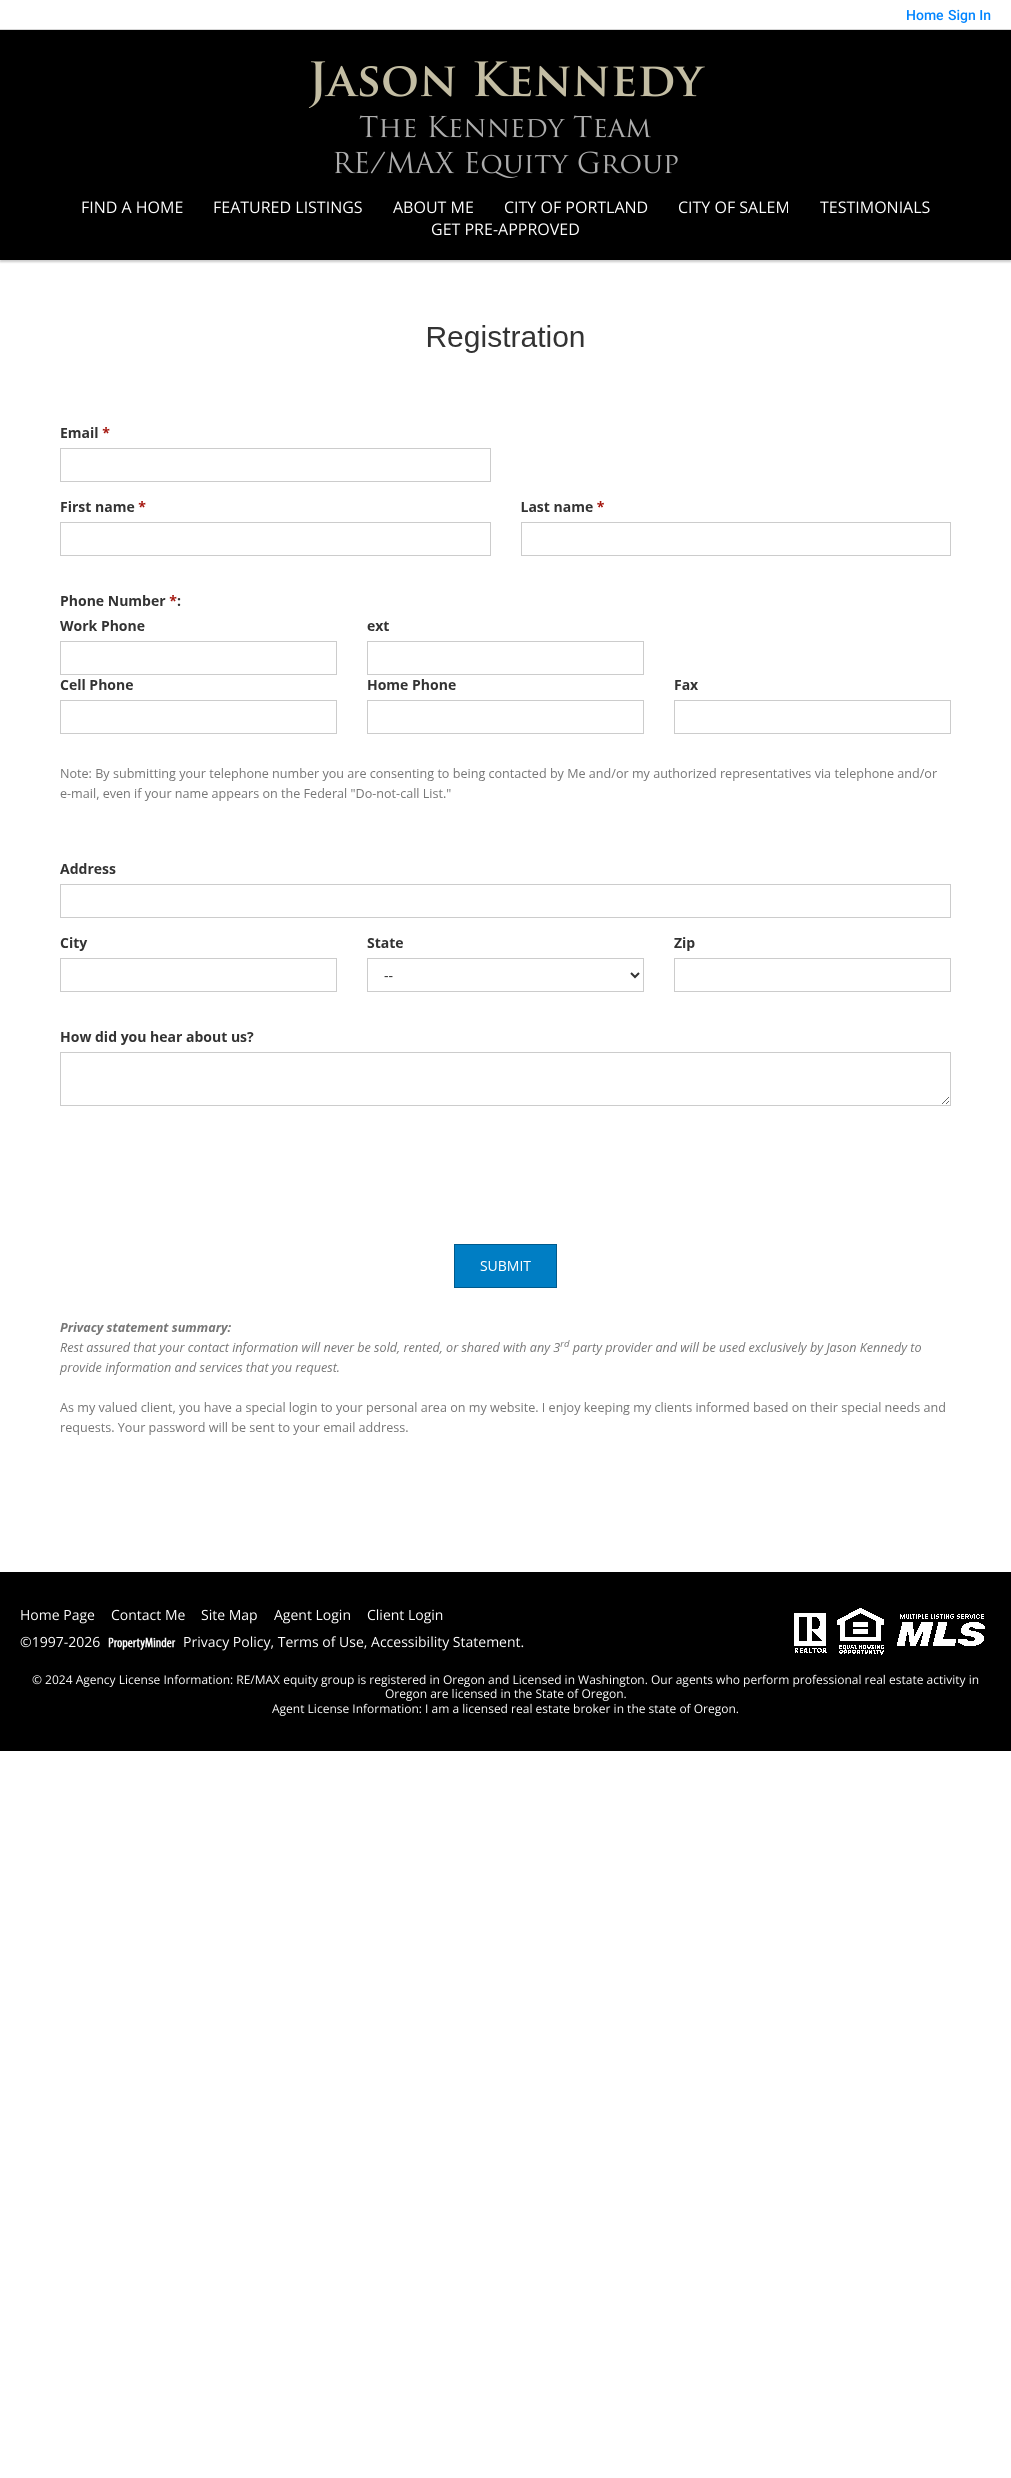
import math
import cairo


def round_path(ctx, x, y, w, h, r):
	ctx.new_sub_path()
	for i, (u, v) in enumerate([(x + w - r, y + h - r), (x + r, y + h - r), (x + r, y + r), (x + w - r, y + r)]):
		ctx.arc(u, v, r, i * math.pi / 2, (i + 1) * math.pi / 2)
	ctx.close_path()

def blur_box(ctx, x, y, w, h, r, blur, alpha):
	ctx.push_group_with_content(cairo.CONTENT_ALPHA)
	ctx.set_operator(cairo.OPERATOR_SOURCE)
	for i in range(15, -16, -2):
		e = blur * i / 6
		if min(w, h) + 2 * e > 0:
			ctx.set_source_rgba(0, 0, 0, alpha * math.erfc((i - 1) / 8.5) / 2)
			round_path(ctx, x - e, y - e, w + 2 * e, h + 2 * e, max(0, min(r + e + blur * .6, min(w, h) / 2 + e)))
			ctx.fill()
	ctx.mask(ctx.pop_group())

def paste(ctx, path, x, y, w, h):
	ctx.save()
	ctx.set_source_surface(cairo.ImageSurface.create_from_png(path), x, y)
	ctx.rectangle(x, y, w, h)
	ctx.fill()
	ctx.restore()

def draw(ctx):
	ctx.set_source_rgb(1, 1, 1)
	ctx.paint()
	ctx.set_source_rgb(0, 0, 0)
	ctx.rectangle(0, 30, 1011, 230)
	ctx.fill()
	ctx.save()
	ctx.rectangle(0, 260, 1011, 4)
	ctx.clip()
	ctx.set_source_rgb(0.8, 0.8, 0.8)
	blur_box(ctx, 0, 32, 1011, 230, 0, 1, 1)
	ctx.restore()
	ctx.set_source_rgb(0.839, 0.839, 0.839)
	ctx.rectangle(0, 29, 1011, 1)
	ctx.fill()
	ctx.select_font_face('Roboto Medium')
	ctx.set_font_size(14)
	ctx.set_source_rgb(0, 0.518, 1)
	ctx.move_to(906, 20)
	ctx.show_text('Home')
	ctx.move_to(948, 20)
	ctx.show_text('Sign In')
	ctx.select_font_face('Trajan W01', cairo.FONT_SLANT_NORMAL, cairo.FONT_WEIGHT_BOLD)
	ctx.set_font_size(46)
	ctx.set_source_rgb(0.765, 0.741, 0.639)
	ctx.move_to(308, 96)
	ctx.show_text('Jason Kennedy')
	ctx.select_font_face('Trajan W01')
	ctx.set_font_size(28)
	ctx.set_source_rgb(0.678, 0.678, 0.678)
	ctx.move_to(359, 137)
	ctx.show_text('The Kennedy Team')
	ctx.move_to(332, 173)
	ctx.show_text('RE/MAX Equity Group')
	ctx.select_font_face('Open Sans')
	ctx.set_font_size(16)
	ctx.set_source_rgb(1, 1, 1)
	for x, y, s in [
		(81, 213, 'FIND A HOME'),
		(213, 213, 'FEATURED LISTINGS'),
		(393, 213, 'ABOUT ME'),
		(504, 213, 'CITY OF PORTLAND'),
		(678, 213, 'CITY OF SALEM'),
		(820, 213, 'TESTIMONIALS'),
		(431, 235, 'GET PRE-APPROVED'),
	]:
		ctx.move_to(x, y)
		ctx.show_text(s)
	paste(ctx, 'media/1.png', 59, 325, 892, 1110)
	ctx.set_source_rgb(0, 0, 0)
	ctx.rectangle(0, 1572, 1011, 179)
	ctx.fill()
	ctx.set_font_size(14)
	ctx.set_source_rgb(1, 1, 1)
	for x, y, s in [
		(20, 1620, 'Home Page'),
		(111, 1620, 'Contact Me'),
		(201, 1620, 'Site Map'),
		(274, 1620, 'Agent Login'),
		(367, 1620, 'Client Login'),
	]:
		ctx.move_to(x, y)
		ctx.show_text(s)
	paste(ctx, 'media/2.png', 794, 1608, 191, 47)
	ctx.move_to(20, 1647)
	ctx.show_text('©1997-2026')
	paste(ctx, 'media/3.png', 108, 1637, 68, 13)
	ctx.move_to(183, 1647)
	ctx.show_text('Privacy Policy, Terms of Use, Accessibility Statement.')
	ctx.set_font_size(12)
	for x, y, s in [
		(32, 1684, '© 2024 Agency License Information: RE/MAX equity group is registered in Oregon and Licensed in Washington. Our agents who perform professional real estate activity in'),
		(385, 1698, 'Oregon are licensed in the State of Oregon.'),
		(272, 1713, 'Agent License Information: I am a licensed real estate broker in the state of Oregon.'),
	]:
		ctx.move_to(x, y)
		ctx.show_text(s)


surface = cairo.ImageSurface(cairo.FORMAT_RGB24, 1011, 2478)
ctx = cairo.Context(surface)
options = cairo.FontOptions()
options.set_hint_metrics(cairo.HINT_METRICS_OFF)
options.set_hint_style(cairo.HINT_STYLE_NONE)
ctx.set_font_options(options)
ctx.set_miter_limit(4)
draw(ctx)
surface.write_to_png('image.png')
